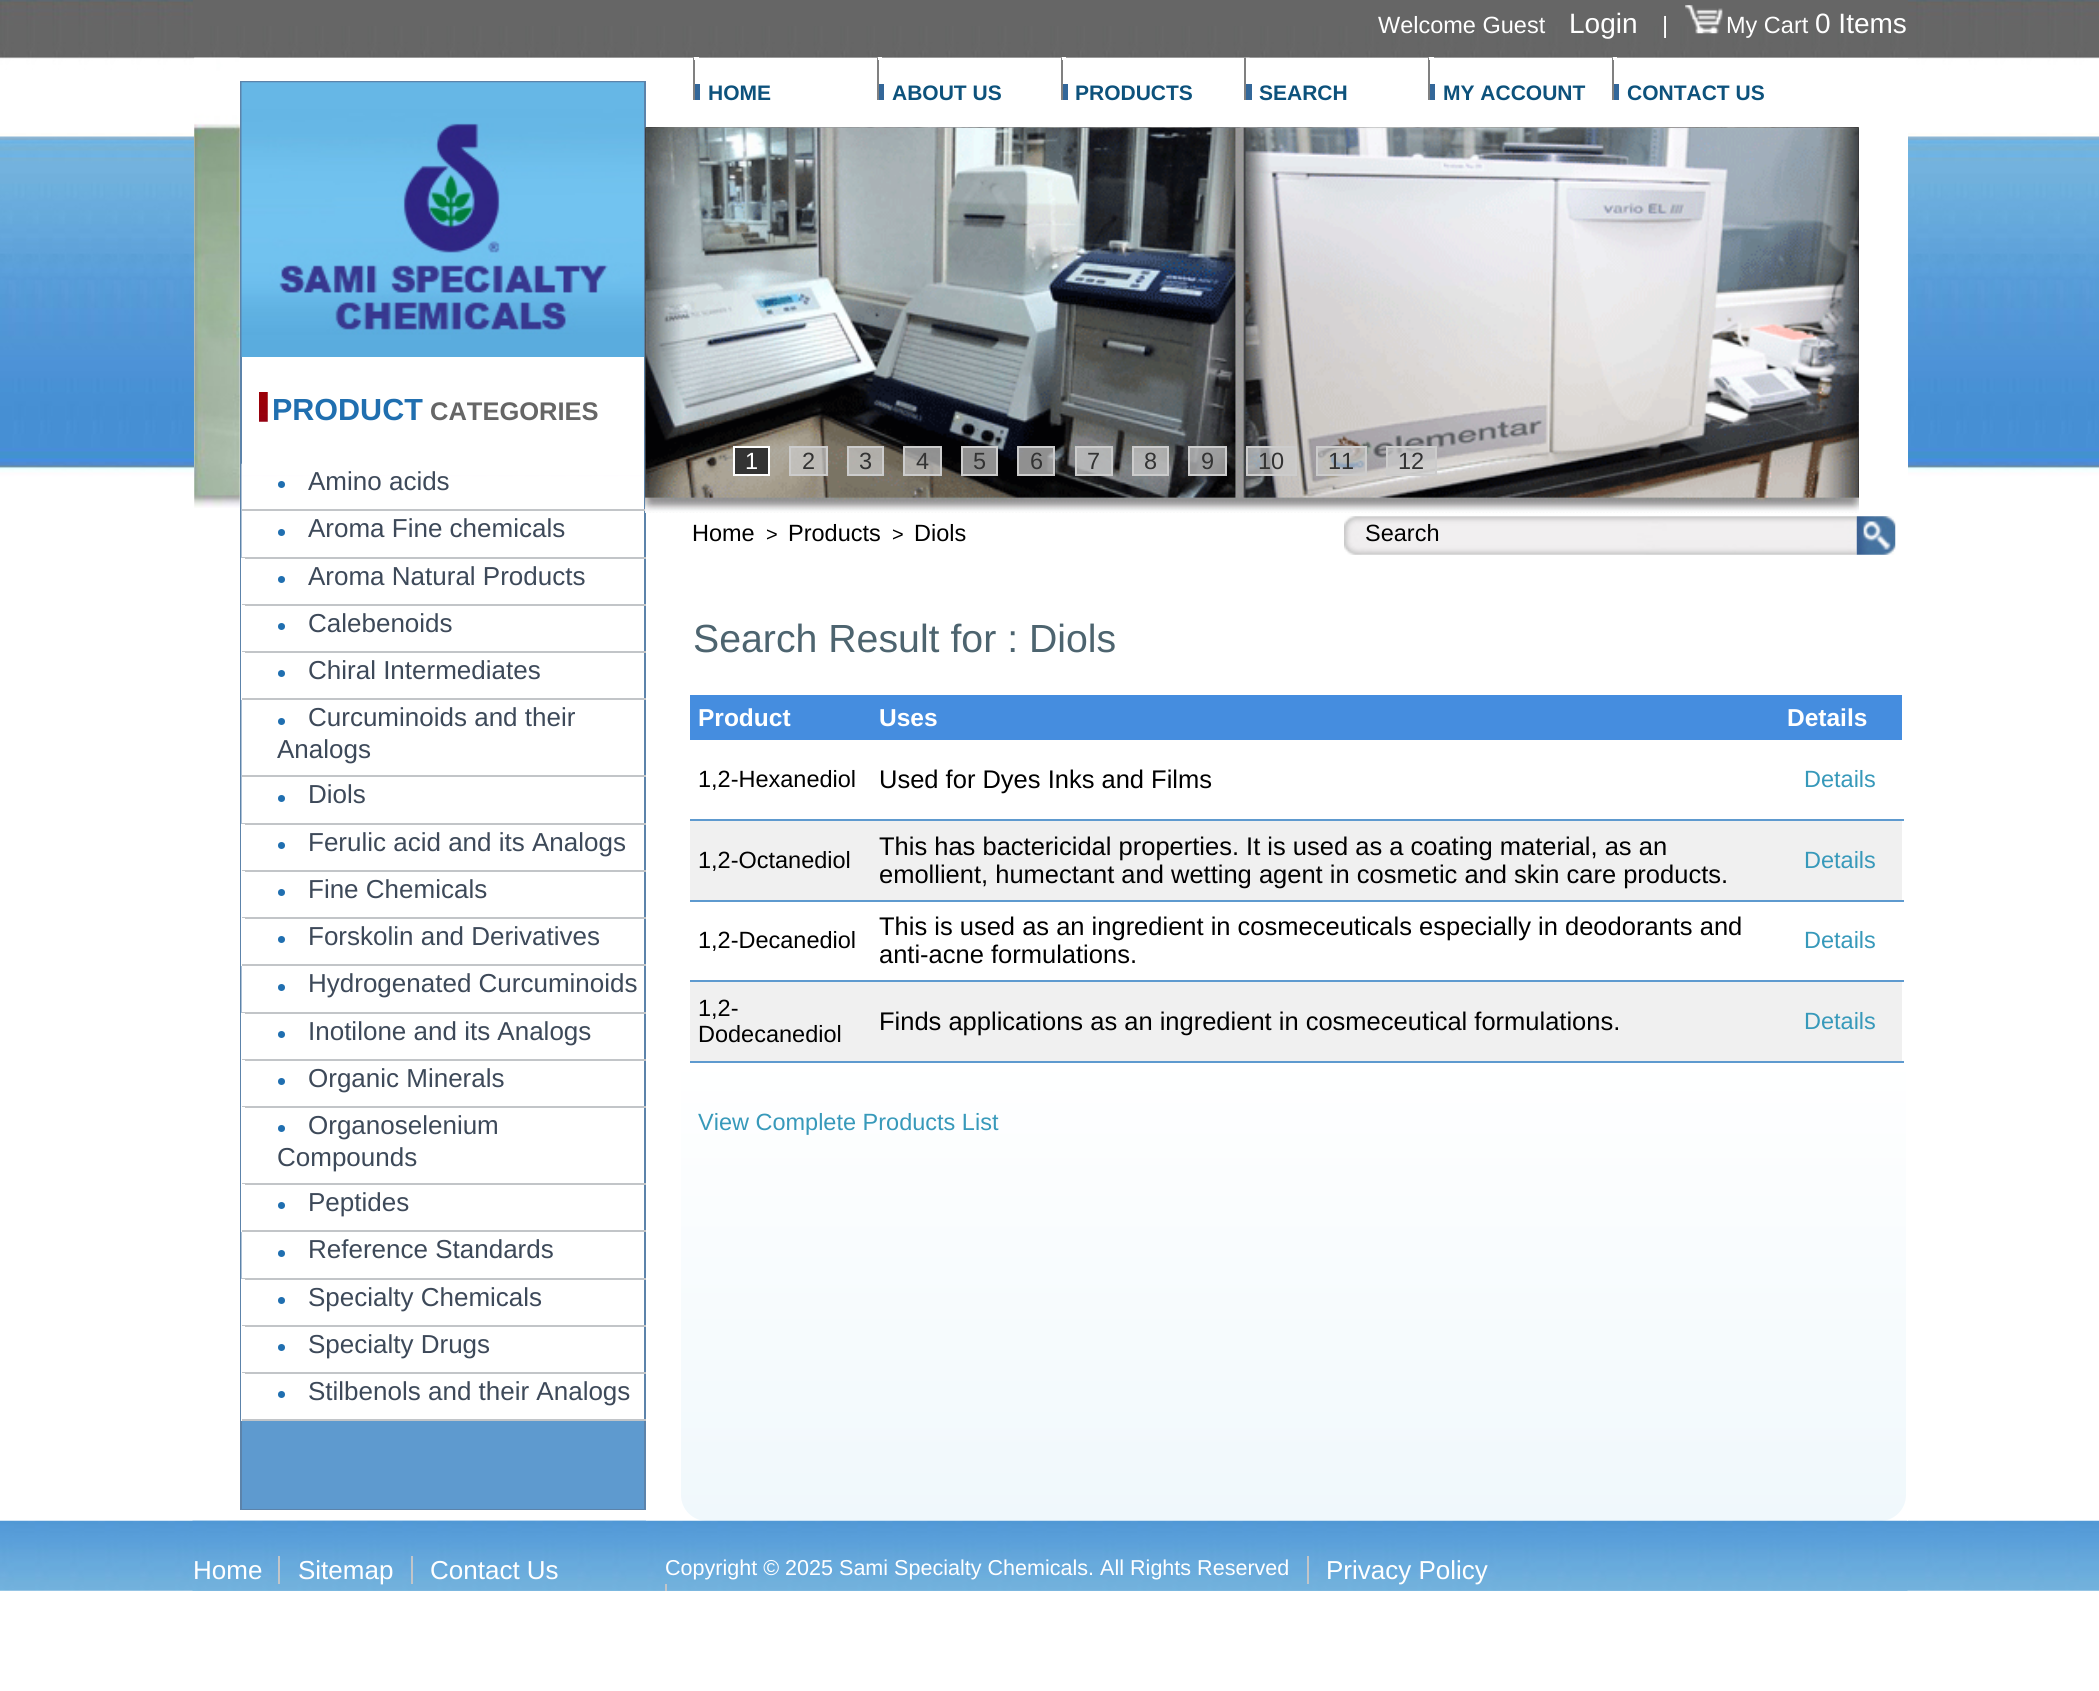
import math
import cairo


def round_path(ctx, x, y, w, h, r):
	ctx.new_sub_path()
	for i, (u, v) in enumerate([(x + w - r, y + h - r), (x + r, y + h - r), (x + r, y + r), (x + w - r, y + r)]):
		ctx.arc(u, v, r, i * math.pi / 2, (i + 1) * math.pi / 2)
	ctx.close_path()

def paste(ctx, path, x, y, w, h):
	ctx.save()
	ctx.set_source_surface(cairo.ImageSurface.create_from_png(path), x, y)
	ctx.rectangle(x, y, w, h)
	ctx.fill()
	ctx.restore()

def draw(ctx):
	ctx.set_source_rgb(1, 1, 1)
	ctx.paint()
	paste(ctx, 'media/1.png', 0, 0, 2099, 1591)
	ctx.set_source_rgb(0.4, 0.4, 0.4)
	ctx.rectangle(193, 0, 1715, 26)
	ctx.fill()
	ctx.select_font_face('Liberation Sans')
	ctx.set_font_size(23.5)
	ctx.set_source_rgb(1, 1, 1)
	ctx.move_to(1378, 33)
	ctx.show_text('Welcome Guest')
	ctx.set_font_size(28)
	ctx.move_to(1569, 33)
	ctx.show_text('Login')
	ctx.set_font_size(23.5)
	ctx.move_to(1662, 33)
	ctx.show_text('|')
	paste(ctx, 'media/2.png', 1685, 5, 38, 29)
	ctx.move_to(1726, 33)
	ctx.show_text('My Cart')
	ctx.set_font_size(28)
	ctx.move_to(1815, 33)
	ctx.show_text('0 Items')
	ctx.rectangle(194, 58, 452, 417)
	ctx.fill()
	paste(ctx, 'media/3.png', 194, 57, 46, 451)
	ctx.rectangle(241, 82, 404, 1427)
	ctx.set_source_rgb(0.361, 0.514, 0.667)
	ctx.stroke()
	paste(ctx, 'media/4.png', 241, 82, 403, 275)
	paste(ctx, 'media/5.png', 259, 392, 9, 30)
	ctx.select_font_face('Liberation Sans', cairo.FONT_SLANT_NORMAL, cairo.FONT_WEIGHT_BOLD)
	ctx.set_font_size(30.5)
	ctx.set_source_rgb(0.125, 0.435, 0.69)
	ctx.move_to(272, 420)
	ctx.show_text('PRODUCT')
	ctx.set_font_size(25.5)
	ctx.set_source_rgb(0.4, 0.4, 0.4)
	ctx.move_to(430, 420)
	ctx.show_text('CATEGORIES')
	paste(ctx, 'media/6.png', 241, 463, 1, 48)
	ctx.set_source_rgb(0.761, 0.773, 0.784)
	ctx.rectangle(242, 509, 404, 2)
	ctx.fill()
	ctx.set_source_rgb(0.125, 0.435, 0.69)
	ctx.arc(281.5, 484.5, 3.5, 0, 2 * math.pi)
	ctx.fill()
	ctx.select_font_face('Liberation Sans')
	ctx.set_font_size(26)
	ctx.set_source_rgb(0.239, 0.286, 0.349)
	ctx.move_to(308, 490)
	ctx.show_text('Amino acids')
	paste(ctx, 'media/7.png', 241, 511, 1, 47)
	ctx.set_source_rgb(0.761, 0.773, 0.784)
	ctx.rectangle(242, 557, 404, 2)
	ctx.fill()
	ctx.set_source_rgb(0.125, 0.435, 0.69)
	ctx.arc(281.5, 532.5, 3.5, 0, 2 * math.pi)
	ctx.fill()
	ctx.set_source_rgb(0.239, 0.286, 0.349)
	ctx.move_to(308, 537)
	ctx.show_text('Aroma Fine chemicals')
	ctx.set_source_rgb(1, 1, 1)
	ctx.rectangle(241, 558, 4, 48)
	ctx.fill()
	ctx.set_source_rgb(0.761, 0.773, 0.784)
	ctx.rectangle(242, 604, 404, 2)
	ctx.fill()
	ctx.set_source_rgb(0.125, 0.435, 0.69)
	ctx.arc(281.5, 579.5, 3.5, 0, 2 * math.pi)
	ctx.fill()
	ctx.set_source_rgb(0.239, 0.286, 0.349)
	ctx.move_to(308, 585)
	ctx.show_text('Aroma Natural Products')
	ctx.set_source_rgb(1, 1, 1)
	ctx.rectangle(241, 605, 4, 48)
	ctx.fill()
	ctx.set_source_rgb(0.761, 0.773, 0.784)
	ctx.rectangle(242, 651, 404, 2)
	ctx.fill()
	ctx.set_source_rgb(0.125, 0.435, 0.69)
	ctx.arc(281.5, 626.5, 3.5, 0, 2 * math.pi)
	ctx.fill()
	ctx.set_source_rgb(0.239, 0.286, 0.349)
	ctx.move_to(308, 632)
	ctx.show_text('Calebenoids')
	ctx.set_source_rgb(1, 1, 1)
	ctx.rectangle(241, 652, 4, 48)
	ctx.fill()
	ctx.set_source_rgb(0.761, 0.773, 0.784)
	ctx.rectangle(242, 698, 404, 2)
	ctx.fill()
	ctx.set_source_rgb(0.125, 0.435, 0.69)
	ctx.arc(281.5, 673.5, 3.5, 0, 2 * math.pi)
	ctx.fill()
	ctx.set_source_rgb(0.239, 0.286, 0.349)
	ctx.move_to(308, 679)
	ctx.show_text('Chiral Intermediates')
	ctx.set_source_rgb(0.682, 0.757, 0.835)
	ctx.rectangle(241, 700, 1, 77)
	ctx.fill()
	ctx.set_source_rgb(0.761, 0.773, 0.784)
	ctx.rectangle(242, 775, 404, 2)
	ctx.fill()
	ctx.set_source_rgb(0.125, 0.435, 0.69)
	ctx.arc(281.5, 721.5, 3.5, 0, 2 * math.pi)
	ctx.fill()
	ctx.set_source_rgb(0.239, 0.286, 0.349)
	ctx.move_to(308, 726)
	ctx.show_text('Curcuminoids and their')
	ctx.move_to(277, 758)
	ctx.show_text('Analogs')
	paste(ctx, 'media/7.png', 241, 777, 1, 47)
	ctx.set_source_rgb(0.761, 0.773, 0.784)
	ctx.rectangle(242, 823, 404, 2)
	ctx.fill()
	ctx.set_source_rgb(0.125, 0.435, 0.69)
	ctx.arc(281.5, 798.5, 3.5, 0, 2 * math.pi)
	ctx.fill()
	ctx.set_source_rgb(0.239, 0.286, 0.349)
	ctx.move_to(308, 803)
	ctx.show_text('Diols')
	ctx.set_source_rgb(1, 1, 1)
	ctx.rectangle(241, 824, 4, 48)
	ctx.fill()
	ctx.set_source_rgb(0.761, 0.773, 0.784)
	ctx.rectangle(242, 870, 404, 2)
	ctx.fill()
	ctx.set_source_rgb(0.125, 0.435, 0.69)
	ctx.arc(281.5, 845.5, 3.5, 0, 2 * math.pi)
	ctx.fill()
	ctx.set_source_rgb(0.239, 0.286, 0.349)
	ctx.move_to(308, 851)
	ctx.show_text('Ferulic acid and its Analogs')
	ctx.set_source_rgb(1, 1, 1)
	ctx.rectangle(241, 871, 4, 48)
	ctx.fill()
	ctx.set_source_rgb(0.761, 0.773, 0.784)
	ctx.rectangle(242, 917, 404, 2)
	ctx.fill()
	ctx.set_source_rgb(0.125, 0.435, 0.69)
	ctx.arc(281.5, 892.5, 3.5, 0, 2 * math.pi)
	ctx.fill()
	ctx.set_source_rgb(0.239, 0.286, 0.349)
	ctx.move_to(308, 898)
	ctx.show_text('Fine Chemicals')
	ctx.set_source_rgb(1, 1, 1)
	ctx.rectangle(241, 918, 4, 48)
	ctx.fill()
	ctx.set_source_rgb(0.761, 0.773, 0.784)
	ctx.rectangle(242, 964, 404, 2)
	ctx.fill()
	ctx.set_source_rgb(0.125, 0.435, 0.69)
	ctx.arc(281.5, 939.5, 3.5, 0, 2 * math.pi)
	ctx.fill()
	ctx.set_source_rgb(0.239, 0.286, 0.349)
	ctx.move_to(308, 945)
	ctx.show_text('Forskolin and Derivatives')
	paste(ctx, 'media/7.png', 241, 966, 1, 47)
	ctx.set_source_rgb(0.761, 0.773, 0.784)
	ctx.rectangle(242, 1012, 404, 2)
	ctx.fill()
	ctx.set_source_rgb(0.125, 0.435, 0.69)
	ctx.arc(281.5, 987.5, 3.5, 0, 2 * math.pi)
	ctx.fill()
	ctx.set_source_rgb(0.239, 0.286, 0.349)
	ctx.move_to(308, 992)
	ctx.show_text('Hydrogenated Curcuminoids')
	ctx.set_source_rgb(1, 1, 1)
	ctx.rectangle(241, 1013, 4, 48)
	ctx.fill()
	ctx.set_source_rgb(0.761, 0.773, 0.784)
	ctx.rectangle(242, 1059, 404, 2)
	ctx.fill()
	ctx.set_source_rgb(0.125, 0.435, 0.69)
	ctx.arc(281.5, 1034.5, 3.5, 0, 2 * math.pi)
	ctx.fill()
	ctx.set_source_rgb(0.239, 0.286, 0.349)
	ctx.move_to(308, 1040)
	ctx.show_text('Inotilone and its Analogs')
	ctx.set_source_rgb(1, 1, 1)
	ctx.rectangle(241, 1060, 4, 48)
	ctx.fill()
	ctx.set_source_rgb(0.761, 0.773, 0.784)
	ctx.rectangle(242, 1106, 404, 2)
	ctx.fill()
	ctx.set_source_rgb(0.125, 0.435, 0.69)
	ctx.arc(281.5, 1081.5, 3.5, 0, 2 * math.pi)
	ctx.fill()
	ctx.set_source_rgb(0.239, 0.286, 0.349)
	ctx.move_to(308, 1087)
	ctx.show_text('Organic Minerals')
	ctx.set_source_rgb(1, 1, 1)
	ctx.rectangle(241, 1107, 4, 78)
	ctx.fill()
	ctx.set_source_rgb(0.761, 0.773, 0.784)
	ctx.rectangle(242, 1183, 404, 2)
	ctx.fill()
	ctx.set_source_rgb(0.125, 0.435, 0.69)
	ctx.arc(281.5, 1128.5, 3.5, 0, 2 * math.pi)
	ctx.fill()
	ctx.set_source_rgb(0.239, 0.286, 0.349)
	ctx.move_to(308, 1134)
	ctx.show_text('Organoselenium')
	ctx.move_to(277, 1166)
	ctx.show_text('Compounds')
	ctx.set_source_rgb(1, 1, 1)
	ctx.rectangle(241, 1184, 4, 48)
	ctx.fill()
	ctx.set_source_rgb(0.761, 0.773, 0.784)
	ctx.rectangle(242, 1230, 404, 2)
	ctx.fill()
	ctx.set_source_rgb(0.125, 0.435, 0.69)
	ctx.arc(281.5, 1205.5, 3.5, 0, 2 * math.pi)
	ctx.fill()
	ctx.set_source_rgb(0.239, 0.286, 0.349)
	ctx.move_to(308, 1211)
	ctx.show_text('Peptides')
	paste(ctx, 'media/7.png', 241, 1232, 1, 47)
	ctx.set_source_rgb(0.761, 0.773, 0.784)
	ctx.rectangle(242, 1278, 404, 2)
	ctx.fill()
	ctx.set_source_rgb(0.125, 0.435, 0.69)
	ctx.arc(281.5, 1253.5, 3.5, 0, 2 * math.pi)
	ctx.fill()
	ctx.set_source_rgb(0.239, 0.286, 0.349)
	ctx.move_to(308, 1258)
	ctx.show_text('Reference Standards')
	ctx.set_source_rgb(1, 1, 1)
	ctx.rectangle(241, 1279, 4, 48)
	ctx.fill()
	ctx.set_source_rgb(0.761, 0.773, 0.784)
	ctx.rectangle(242, 1325, 404, 2)
	ctx.fill()
	ctx.set_source_rgb(0.125, 0.435, 0.69)
	ctx.arc(281.5, 1300.5, 3.5, 0, 2 * math.pi)
	ctx.fill()
	ctx.set_source_rgb(0.239, 0.286, 0.349)
	ctx.move_to(308, 1306)
	ctx.show_text('Specialty Chemicals')
	ctx.set_source_rgb(1, 1, 1)
	ctx.rectangle(241, 1326, 4, 48)
	ctx.fill()
	ctx.set_source_rgb(0.761, 0.773, 0.784)
	ctx.rectangle(242, 1372, 404, 2)
	ctx.fill()
	ctx.set_source_rgb(0.125, 0.435, 0.69)
	ctx.arc(281.5, 1347.5, 3.5, 0, 2 * math.pi)
	ctx.fill()
	ctx.set_source_rgb(0.239, 0.286, 0.349)
	ctx.move_to(308, 1353)
	ctx.show_text('Specialty Drugs')
	ctx.set_source_rgb(1, 1, 1)
	ctx.rectangle(241, 1373, 4, 48)
	ctx.fill()
	ctx.set_source_rgb(0.761, 0.773, 0.784)
	ctx.rectangle(242, 1419, 404, 2)
	ctx.fill()
	ctx.set_source_rgb(0.125, 0.435, 0.69)
	ctx.arc(281.5, 1394.5, 3.5, 0, 2 * math.pi)
	ctx.fill()
	ctx.set_source_rgb(0.239, 0.286, 0.349)
	ctx.move_to(308, 1400)
	ctx.show_text('Stilbenols and their Analogs')
	ctx.set_source_rgb(0.369, 0.604, 0.812)
	ctx.rectangle(242, 1421, 402, 88)
	ctx.fill()
	ctx.set_source_rgb(1, 1, 1)
	ctx.rectangle(646, 58, 1262, 1463)
	ctx.fill()
	ctx.set_source_rgb(0.2, 0.404, 0.6)
	ctx.rectangle(695, 84, 5, 16)
	ctx.fill()
	ctx.set_source_rgb(0.502, 0.502, 0.502)
	ctx.rectangle(693, 58, 2, 42)
	ctx.fill()
	ctx.set_source_rgb(1, 1, 1)
	ctx.rectangle(694, 57, 5, 3)
	ctx.fill()
	ctx.select_font_face('Liberation Sans', cairo.FONT_SLANT_NORMAL, cairo.FONT_WEIGHT_BOLD)
	ctx.set_font_size(21)
	ctx.set_source_rgb(0.051, 0.322, 0.486)
	ctx.move_to(708, 100)
	ctx.show_text('HOME')
	ctx.set_source_rgb(0.2, 0.404, 0.6)
	ctx.rectangle(879, 84, 5, 16)
	ctx.fill()
	ctx.set_source_rgb(0.502, 0.502, 0.502)
	ctx.rectangle(877, 58, 2, 42)
	ctx.fill()
	ctx.set_source_rgb(1, 1, 1)
	ctx.rectangle(878, 57, 4, 3)
	ctx.fill()
	ctx.set_source_rgb(0.051, 0.322, 0.486)
	ctx.move_to(892, 100)
	ctx.show_text('ABOUT US')
	ctx.set_source_rgb(0.2, 0.404, 0.6)
	ctx.rectangle(1063, 84, 5, 16)
	ctx.fill()
	ctx.set_source_rgb(0.502, 0.502, 0.502)
	ctx.rectangle(1061, 58, 2, 42)
	ctx.fill()
	ctx.set_source_rgb(1, 1, 1)
	ctx.rectangle(1062, 57, 4, 3)
	ctx.fill()
	ctx.set_source_rgb(0.051, 0.322, 0.486)
	ctx.move_to(1075, 100)
	ctx.show_text('PRODUCTS')
	ctx.set_source_rgb(0.2, 0.404, 0.6)
	ctx.rectangle(1246, 84, 6, 16)
	ctx.fill()
	ctx.set_source_rgb(0.502, 0.502, 0.502)
	ctx.rectangle(1244, 58, 2, 42)
	ctx.fill()
	paste(ctx, 'media/8.png', 1246, 57, 4, 1)
	ctx.set_source_rgb(0.051, 0.322, 0.486)
	ctx.move_to(1259, 100)
	ctx.show_text('SEARCH')
	ctx.set_source_rgb(0.2, 0.404, 0.6)
	ctx.rectangle(1430, 84, 5, 16)
	ctx.fill()
	ctx.set_source_rgb(0.502, 0.502, 0.502)
	ctx.rectangle(1428, 58, 2, 42)
	ctx.fill()
	ctx.set_source_rgb(1, 1, 1)
	ctx.rectangle(1429, 57, 5, 3)
	ctx.fill()
	ctx.set_source_rgb(0.051, 0.322, 0.486)
	ctx.move_to(1443, 100)
	ctx.show_text('MY ACCOUNT')
	ctx.set_source_rgb(0.2, 0.404, 0.6)
	ctx.rectangle(1614, 84, 5, 16)
	ctx.fill()
	ctx.set_source_rgb(0.502, 0.502, 0.502)
	ctx.rectangle(1612, 58, 2, 42)
	ctx.fill()
	ctx.set_source_rgb(1, 1, 1)
	ctx.rectangle(1613, 57, 4, 3)
	ctx.fill()
	ctx.set_source_rgb(0.051, 0.322, 0.486)
	ctx.move_to(1627, 100)
	ctx.show_text('CONTACT US')
	paste(ctx, 'media/9.png', 645, 127, 1214, 386)
	paste(ctx, 'media/10.png', 645, 127, 1214, 386)
	paste(ctx, 'media/11.png', 645, 127, 1214, 386)
	paste(ctx, 'media/12.png', 645, 127, 1214, 386)
	paste(ctx, 'media/13.png', 645, 127, 1214, 386)
	paste(ctx, 'media/14.png', 645, 127, 1214, 386)
	paste(ctx, 'media/15.png', 645, 127, 1214, 386)
	paste(ctx, 'media/16.png', 645, 127, 1214, 386)
	paste(ctx, 'media/17.png', 645, 127, 1214, 386)
	paste(ctx, 'media/18.png', 645, 127, 1214, 386)
	paste(ctx, 'media/19.png', 645, 127, 1214, 386)
	paste(ctx, 'media/20.png', 645, 127, 1214, 385)
	ctx.set_source_rgb(0.2, 0.2, 0.2)
	ctx.rectangle(734, 447, 35, 28)
	ctx.fill_preserve()
	ctx.set_source_rgb(1, 1, 1)
	ctx.stroke()
	ctx.select_font_face('Liberation Sans')
	ctx.set_font_size(23.5)
	ctx.move_to(745, 469)
	ctx.show_text('1')
	ctx.set_source_rgba(0.8, 0.8, 0.8, 0.7)
	ctx.rectangle(790, 447, 37, 28)
	ctx.fill_preserve()
	ctx.set_source_rgb(0.8, 0.8, 0.8)
	ctx.stroke()
	ctx.set_source_rgb(0.2, 0.2, 0.2)
	ctx.move_to(802, 469)
	ctx.show_text('2')
	ctx.set_source_rgba(0.8, 0.8, 0.8, 0.7)
	ctx.rectangle(848, 447, 35, 28)
	ctx.fill_preserve()
	ctx.set_source_rgb(0.8, 0.8, 0.8)
	ctx.stroke()
	ctx.set_source_rgb(0.2, 0.2, 0.2)
	ctx.move_to(859, 469)
	ctx.show_text('3')
	ctx.set_source_rgba(0.8, 0.8, 0.8, 0.7)
	ctx.rectangle(904, 447, 37, 28)
	ctx.fill_preserve()
	ctx.set_source_rgb(0.8, 0.8, 0.8)
	ctx.stroke()
	ctx.set_source_rgb(0.2, 0.2, 0.2)
	ctx.move_to(916, 469)
	ctx.show_text('4')
	ctx.set_source_rgba(0.8, 0.8, 0.8, 0.7)
	ctx.rectangle(962, 447, 35, 28)
	ctx.fill_preserve()
	ctx.set_source_rgb(0.8, 0.8, 0.8)
	ctx.stroke()
	ctx.set_source_rgb(0.2, 0.2, 0.2)
	ctx.move_to(973, 469)
	ctx.show_text('5')
	ctx.set_source_rgba(0.8, 0.8, 0.8, 0.7)
	ctx.rectangle(1018, 447, 36, 28)
	ctx.fill_preserve()
	ctx.set_source_rgb(0.8, 0.8, 0.8)
	ctx.stroke()
	ctx.set_source_rgb(0.2, 0.2, 0.2)
	ctx.move_to(1030, 469)
	ctx.show_text('6')
	ctx.set_source_rgba(0.8, 0.8, 0.8, 0.7)
	ctx.rectangle(1076, 447, 36, 28)
	ctx.fill_preserve()
	ctx.set_source_rgb(0.8, 0.8, 0.8)
	ctx.stroke()
	ctx.set_source_rgb(0.2, 0.2, 0.2)
	ctx.move_to(1087, 469)
	ctx.show_text('7')
	ctx.set_source_rgba(0.8, 0.8, 0.8, 0.7)
	ctx.rectangle(1133, 447, 35, 28)
	ctx.fill_preserve()
	ctx.set_source_rgb(0.8, 0.8, 0.8)
	ctx.stroke()
	ctx.set_source_rgb(0.2, 0.2, 0.2)
	ctx.move_to(1144, 469)
	ctx.show_text('8')
	ctx.set_source_rgba(0.8, 0.8, 0.8, 0.7)
	ctx.rectangle(1189, 447, 37, 28)
	ctx.fill_preserve()
	ctx.set_source_rgb(0.8, 0.8, 0.8)
	ctx.stroke()
	ctx.set_source_rgb(0.2, 0.2, 0.2)
	ctx.move_to(1201, 469)
	ctx.show_text('9')
	ctx.set_source_rgba(0.8, 0.8, 0.8, 0.7)
	ctx.rectangle(1247, 447, 49, 28)
	ctx.fill_preserve()
	ctx.set_source_rgb(0.8, 0.8, 0.8)
	ctx.stroke()
	ctx.set_source_rgb(0.2, 0.2, 0.2)
	ctx.move_to(1258, 469)
	ctx.show_text('10')
	ctx.set_source_rgba(0.8, 0.8, 0.8, 0.7)
	ctx.rectangle(1317, 447, 49, 28)
	ctx.fill_preserve()
	ctx.set_source_rgb(0.8, 0.8, 0.8)
	ctx.stroke()
	ctx.set_source_rgb(0.2, 0.2, 0.2)
	ctx.move_to(1328, 469)
	ctx.show_text('11')
	ctx.set_source_rgba(0.8, 0.8, 0.8, 0.7)
	ctx.rectangle(1387, 447, 49, 28)
	ctx.fill_preserve()
	ctx.set_source_rgb(0.8, 0.8, 0.8)
	ctx.stroke()
	ctx.set_source_rgb(0.2, 0.2, 0.2)
	ctx.move_to(1398, 469)
	ctx.show_text('12')
	ctx.set_source_rgb(0, 0, 0)
	ctx.move_to(692, 541)
	ctx.show_text('Home')
	ctx.set_font_size(20)
	ctx.move_to(766, 541)
	ctx.show_text('>')
	ctx.set_font_size(23.5)
	ctx.move_to(788, 541)
	ctx.show_text('Products')
	ctx.set_font_size(20)
	ctx.move_to(892, 541)
	ctx.show_text('>')
	ctx.set_font_size(23.5)
	ctx.move_to(914, 541)
	ctx.show_text('Diols')
	paste(ctx, 'media/21.png', 1344, 516, 513, 39)
	ctx.move_to(1365, 541)
	ctx.show_text('Search')
	paste(ctx, 'media/22.png', 1856, 516, 40, 39)
	gradient = cairo.LinearGradient(1293, 593, 1293, 1521)
	gradient.add_color_stop_rgba(0.5, 1, 1, 1, 1)
	gradient.add_color_stop_rgba(1, 0.941, 0.973, 0.988, 1)
	ctx.set_source(gradient)
	round_path(ctx, 681, 593, 1225, 928, 26)
	ctx.fill()
	ctx.set_font_size(39.25)
	ctx.set_source_rgb(0.302, 0.392, 0.435)
	ctx.move_to(693, 652)
	ctx.show_text('Search Result for : Diols')
	ctx.set_source_rgb(0.271, 0.553, 0.875)
	ctx.rectangle(690, 695, 1212, 45)
	ctx.fill()
	ctx.select_font_face('Liberation Sans', cairo.FONT_SLANT_NORMAL, cairo.FONT_WEIGHT_BOLD)
	ctx.set_font_size(24.5)
	ctx.set_source_rgb(1, 1, 1)
	for x, y, s in [
		(698, 726, 'Product'),
		(879, 726, 'Uses'),
		(1787, 726, 'Details'),
	]:
		ctx.move_to(x, y)
		ctx.show_text(s)
	ctx.select_font_face('Liberation Sans')
	ctx.set_font_size(23.5)
	ctx.set_source_rgb(0, 0, 0)
	ctx.move_to(698, 787)
	ctx.show_text('1,2-Hexanediol')
	ctx.set_font_size(25.5)
	ctx.move_to(879, 788)
	ctx.show_text('Used for Dyes Inks and Films')
	ctx.set_source_rgb(0.369, 0.604, 0.812)
	ctx.rectangle(690, 819, 1214, 2)
	ctx.fill()
	ctx.set_font_size(23.5)
	ctx.set_source_rgb(0.216, 0.6, 0.729)
	ctx.move_to(1804, 787)
	ctx.show_text('Details')
	ctx.set_source_rgb(0.941, 0.941, 0.941)
	ctx.rectangle(690, 821, 1212, 79)
	ctx.fill()
	ctx.set_source_rgb(0, 0, 0)
	ctx.move_to(698, 868)
	ctx.show_text('1,2-Octanediol')
	ctx.set_font_size(25.5)
	ctx.move_to(879, 855)
	ctx.show_text('This has bactericidal properties. It is used as a coating material, as an')
	ctx.move_to(879, 883)
	ctx.show_text('emollient, humectant and wetting agent in cosmetic and skin care products.')
	ctx.set_source_rgb(0.369, 0.604, 0.812)
	ctx.rectangle(690, 900, 1214, 2)
	ctx.fill()
	ctx.set_font_size(23.5)
	ctx.set_source_rgb(0.216, 0.6, 0.729)
	ctx.move_to(1804, 868)
	ctx.show_text('Details')
	ctx.set_source_rgb(0, 0, 0)
	ctx.move_to(698, 948)
	ctx.show_text('1,2-Decanediol')
	ctx.set_font_size(25.5)
	ctx.move_to(879, 935)
	ctx.show_text('This is used as an ingredient in cosmeceuticals especially in deodorants and')
	ctx.move_to(879, 963)
	ctx.show_text('anti-acne formulations.')
	ctx.set_source_rgb(0.369, 0.604, 0.812)
	ctx.rectangle(690, 980, 1214, 2)
	ctx.fill()
	ctx.set_font_size(23.5)
	ctx.set_source_rgb(0.216, 0.6, 0.729)
	ctx.move_to(1804, 948)
	ctx.show_text('Details')
	ctx.set_source_rgb(0.941, 0.941, 0.941)
	ctx.rectangle(690, 982, 1212, 79)
	ctx.fill()
	ctx.set_source_rgb(0, 0, 0)
	ctx.move_to(698, 1016)
	ctx.show_text('1,2-')
	ctx.move_to(698, 1042)
	ctx.show_text('Dodecanediol')
	ctx.set_font_size(25.5)
	ctx.move_to(879, 1030)
	ctx.show_text('Finds applications as an ingredient in cosmeceutical formulations.')
	ctx.set_source_rgb(0.369, 0.604, 0.812)
	ctx.rectangle(690, 1061, 1214, 2)
	ctx.fill()
	ctx.set_font_size(23.5)
	ctx.set_source_rgb(0.216, 0.6, 0.729)
	ctx.move_to(1804, 1029)
	ctx.show_text('Details')
	ctx.move_to(698, 1130)
	ctx.show_text('View Complete Products List')
	paste(ctx, 'media/23.png', 192, 1520, 1716, 71)
	ctx.set_font_size(26)
	ctx.set_source_rgb(1, 1, 1)
	ctx.move_to(193, 1579)
	ctx.show_text('Home')
	ctx.set_source_rgb(0.761, 0.773, 0.784)
	ctx.rectangle(278, 1556, 2, 28)
	ctx.fill()
	ctx.set_source_rgb(1, 1, 1)
	ctx.move_to(298, 1579)
	ctx.show_text('Sitemap')
	ctx.set_source_rgb(0.761, 0.773, 0.784)
	ctx.rectangle(411, 1556, 2, 28)
	ctx.fill()
	ctx.set_source_rgb(1, 1, 1)
	ctx.move_to(430, 1579)
	ctx.show_text('Contact Us')
	ctx.set_font_size(21.55)
	ctx.move_to(665, 1575)
	ctx.show_text('Copyright © 2025 Sami Specialty Chemicals. All Rights Reserved')
	ctx.set_source_rgb(0.761, 0.773, 0.784)
	ctx.rectangle(1307, 1556, 2, 28)
	ctx.fill()
	ctx.set_font_size(26)
	ctx.set_source_rgb(1, 1, 1)
	ctx.move_to(1326, 1579)
	ctx.show_text('Privacy Policy')
	ctx.set_source_rgb(0.761, 0.773, 0.784)
	ctx.rectangle(665, 1584, 2, 7)
	ctx.fill()


surface = cairo.ImageSurface(cairo.FORMAT_RGB24, 2099, 1691)
ctx = cairo.Context(surface)
options = cairo.FontOptions()
options.set_hint_metrics(cairo.HINT_METRICS_OFF)
options.set_hint_style(cairo.HINT_STYLE_NONE)
ctx.set_font_options(options)
ctx.set_miter_limit(4)
draw(ctx)
surface.write_to_png('image.png')
